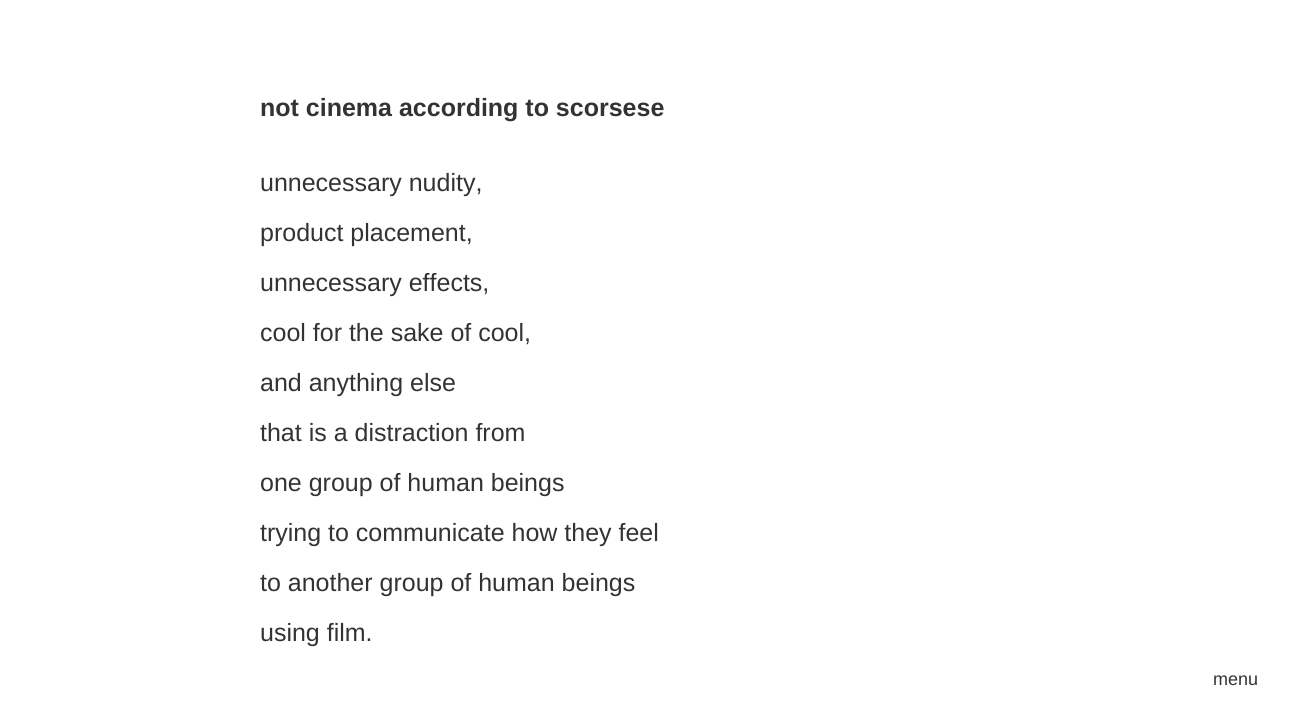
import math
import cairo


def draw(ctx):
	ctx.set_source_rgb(1, 1, 1)
	ctx.paint()
	ctx.select_font_face('Liberation Sans', cairo.FONT_SLANT_NORMAL, cairo.FONT_WEIGHT_BOLD)
	ctx.set_font_size(25)
	ctx.set_source_rgb(0.2, 0.2, 0.2)
	ctx.move_to(260, 116)
	ctx.show_text('not cinema according to scorsese')
	ctx.select_font_face('Liberation Sans')
	for x, y, s in [
		(260, 191, 'unnecessary nudity,'),
		(260, 241, 'product placement,'),
		(260, 291, 'unnecessary effects,'),
		(260, 341, 'cool for the sake of cool,'),
		(260, 391, 'and anything else'),
		(260, 441, 'that is a distraction from'),
		(260, 491, 'one group of human beings'),
		(260, 541, 'trying to communicate how they feel'),
		(260, 591, 'to another group of human beings'),
		(260, 641, 'using film.'),
	]:
		ctx.move_to(x, y)
		ctx.show_text(s)
	ctx.set_font_size(18)
	ctx.move_to(1213, 685)
	ctx.show_text('menu')


surface = cairo.ImageSurface(cairo.FORMAT_RGB24, 1295, 721)
ctx = cairo.Context(surface)
options = cairo.FontOptions()
options.set_hint_metrics(cairo.HINT_METRICS_OFF)
options.set_hint_style(cairo.HINT_STYLE_NONE)
ctx.set_font_options(options)
ctx.set_miter_limit(4)
draw(ctx)
surface.write_to_png('image.png')
